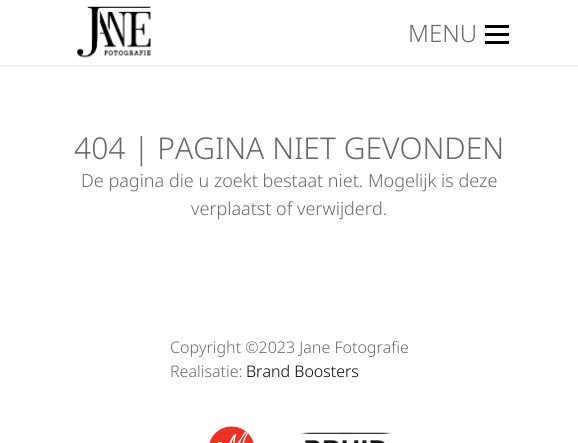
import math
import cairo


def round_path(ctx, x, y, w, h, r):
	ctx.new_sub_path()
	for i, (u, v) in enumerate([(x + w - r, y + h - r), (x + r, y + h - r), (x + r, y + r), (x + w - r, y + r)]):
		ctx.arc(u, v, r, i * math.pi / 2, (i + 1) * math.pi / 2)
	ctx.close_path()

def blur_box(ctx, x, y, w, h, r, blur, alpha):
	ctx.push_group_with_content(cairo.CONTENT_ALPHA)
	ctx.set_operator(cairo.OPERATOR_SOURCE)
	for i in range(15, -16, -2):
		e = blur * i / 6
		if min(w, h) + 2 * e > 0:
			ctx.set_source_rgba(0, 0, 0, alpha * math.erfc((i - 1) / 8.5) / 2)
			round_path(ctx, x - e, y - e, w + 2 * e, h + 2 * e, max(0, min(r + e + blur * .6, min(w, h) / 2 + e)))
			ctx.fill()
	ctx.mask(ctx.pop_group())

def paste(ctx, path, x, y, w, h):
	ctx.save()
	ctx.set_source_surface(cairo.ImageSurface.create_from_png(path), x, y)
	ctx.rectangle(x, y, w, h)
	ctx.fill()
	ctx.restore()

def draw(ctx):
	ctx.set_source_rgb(1, 1, 1)
	ctx.paint()
	ctx.save()
	ctx.rectangle(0, 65, 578, 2)
	ctx.clip()
	ctx.set_source_rgb(0, 0, 0)
	blur_box(ctx, 0, 1, 578, 65, 0, 1.5, 0.1)
	ctx.restore()
	paste(ctx, 'media/1.png', 77, 6, 74, 52)
	ctx.select_font_face('Noto Sans Light')
	ctx.set_font_size(24)
	ctx.set_source_rgb(0.408, 0.408, 0.408)
	ctx.move_to(408, 42)
	ctx.show_text('MENU')
	ctx.set_source_rgb(0, 0, 0)
	ctx.rectangle(485, 25, 24, 3)
	ctx.rectangle(485, 33, 24, 3)
	ctx.rectangle(485, 41, 24, 3)
	ctx.fill()
	ctx.set_font_size(30)
	ctx.set_source_rgb(0.408, 0.408, 0.408)
	ctx.move_to(74, 159)
	ctx.show_text('404 | PAGINA NIET GEVONDEN')
	ctx.set_font_size(18)
	ctx.move_to(81, 187)
	ctx.show_text('De pagina die u zoekt bestaat niet. Mogelijk is deze')
	ctx.move_to(191, 215)
	ctx.show_text('verplaatst of verwijderd.')
	ctx.set_font_size(16)
	ctx.move_to(170, 353)
	ctx.show_text('Copyright ©2023 Jane Fotografie')
	ctx.move_to(170, 377)
	ctx.show_text('Realisatie:')
	ctx.set_source_rgb(0, 0, 0)
	ctx.move_to(246, 377)
	ctx.show_text('Brand Boosters')
	paste(ctx, 'media/2.png', 209, 426, 45, 17)
	paste(ctx, 'media/3.png', 300, 432, 92, 11)


surface = cairo.ImageSurface(cairo.FORMAT_RGB24, 578, 443)
ctx = cairo.Context(surface)
options = cairo.FontOptions()
options.set_hint_metrics(cairo.HINT_METRICS_OFF)
options.set_hint_style(cairo.HINT_STYLE_NONE)
ctx.set_font_options(options)
ctx.set_miter_limit(4)
draw(ctx)
surface.write_to_png('image.png')
